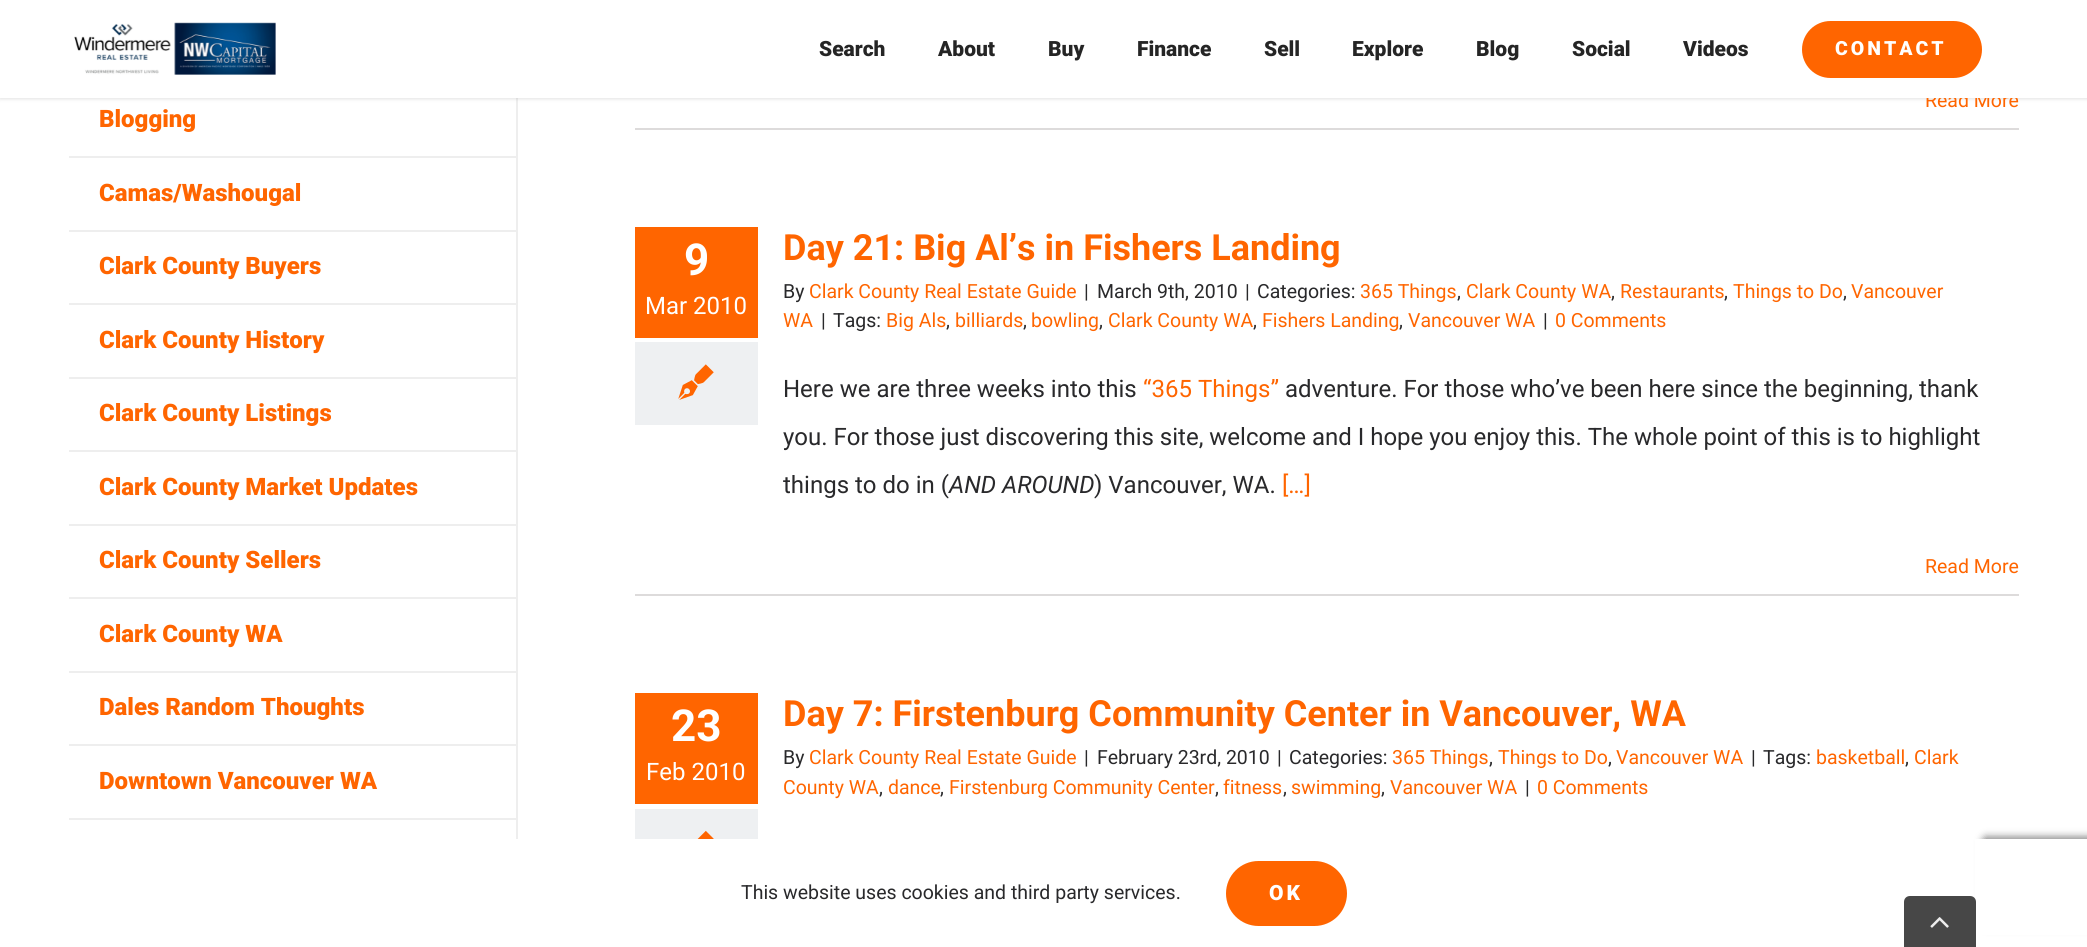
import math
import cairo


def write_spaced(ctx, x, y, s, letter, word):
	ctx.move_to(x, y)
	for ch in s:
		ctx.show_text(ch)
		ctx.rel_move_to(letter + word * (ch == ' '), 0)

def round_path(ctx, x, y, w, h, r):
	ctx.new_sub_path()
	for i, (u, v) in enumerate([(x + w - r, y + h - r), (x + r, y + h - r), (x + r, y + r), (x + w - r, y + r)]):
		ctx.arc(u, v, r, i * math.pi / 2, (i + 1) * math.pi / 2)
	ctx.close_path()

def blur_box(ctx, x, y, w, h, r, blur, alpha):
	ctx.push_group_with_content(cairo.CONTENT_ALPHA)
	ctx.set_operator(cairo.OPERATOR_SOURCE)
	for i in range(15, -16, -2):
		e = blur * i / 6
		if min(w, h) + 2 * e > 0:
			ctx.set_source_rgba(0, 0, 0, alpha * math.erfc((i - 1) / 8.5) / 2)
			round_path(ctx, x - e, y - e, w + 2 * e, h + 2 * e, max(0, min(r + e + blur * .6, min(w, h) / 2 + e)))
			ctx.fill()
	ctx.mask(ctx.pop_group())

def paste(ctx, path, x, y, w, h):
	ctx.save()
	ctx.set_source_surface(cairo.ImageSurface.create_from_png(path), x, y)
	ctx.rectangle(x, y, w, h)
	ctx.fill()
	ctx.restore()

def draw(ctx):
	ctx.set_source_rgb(1, 1, 1)
	ctx.paint()
	ctx.set_source_rgb(0.933, 0.933, 0.933)
	ctx.rectangle(516, 98, 2, 741)
	ctx.fill()
	ctx.set_source_rgb(0, 0, 0)
	blur_box(ctx, 0, 2, 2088, 97, 0, 2, 0.12)
	ctx.select_font_face('Roboto')
	ctx.set_font_size(19.5)
	ctx.set_source_rgb(1, 0.396, 0)
	ctx.move_to(1925, 107)
	ctx.show_text('Read More')
	ctx.set_source_rgb(1, 1, 1)
	ctx.rectangle(0, 0, 2087, 98)
	ctx.fill()
	paste(ctx, 'media/1.png', 74, 22, 202, 53)
	ctx.select_font_face('Roboto Black')
	ctx.set_font_size(21)
	ctx.set_source_rgb(0.145, 0.145, 0.145)
	ctx.move_to(819, 56)
	ctx.show_text('Search')
	ctx.move_to(938, 56)
	ctx.show_text('About')
	ctx.save()
	ctx.rectangle(1049, 0, 88, 98)
	ctx.clip()
	ctx.move_to(1048, 56)
	ctx.show_text('Buy')
	ctx.restore()
	for x, y, s in [
		(1137, 56, 'Finance'),
		(1264, 56, 'Sell'),
		(1352, 56, 'Explore'),
		(1476, 56, 'Blog'),
		(1572, 56, 'Social'),
		(1683, 56, 'Videos'),
	]:
		ctx.move_to(x, y)
		ctx.show_text(s)
	ctx.set_source_rgb(1, 0.396, 0)
	round_path(ctx, 1802, 21, 180, 57, 28.5)
	ctx.fill()
	ctx.set_font_size(19.5)
	ctx.set_source_rgb(1, 1, 1)
	write_spaced(ctx, 1835, 55, 'CONTACT', 3, 0)
	ctx.set_source_rgb(0.933, 0.933, 0.933)
	ctx.rectangle(69, 156, 447, 2)
	ctx.fill()
	ctx.set_font_size(24)
	ctx.set_source_rgb(1, 0.396, 0)
	ctx.move_to(99, 127)
	ctx.show_text('Blogging')
	ctx.set_source_rgb(0.933, 0.933, 0.933)
	ctx.rectangle(69, 230, 447, 2)
	ctx.fill()
	ctx.set_source_rgb(1, 0.396, 0)
	ctx.move_to(99, 201)
	ctx.show_text('Camas/Washougal')
	ctx.set_source_rgb(0.933, 0.933, 0.933)
	ctx.rectangle(69, 303, 447, 2)
	ctx.fill()
	ctx.set_source_rgb(1, 0.396, 0)
	ctx.move_to(99, 274)
	ctx.show_text('Clark County Buyers')
	ctx.set_source_rgb(0.933, 0.933, 0.933)
	ctx.rectangle(69, 377, 447, 2)
	ctx.fill()
	ctx.set_source_rgb(1, 0.396, 0)
	ctx.move_to(99, 348)
	ctx.show_text('Clark County History')
	ctx.set_source_rgb(0.933, 0.933, 0.933)
	ctx.rectangle(69, 450, 447, 2)
	ctx.fill()
	ctx.set_source_rgb(1, 0.396, 0)
	ctx.move_to(99, 421)
	ctx.show_text('Clark County Listings')
	ctx.set_source_rgb(0.933, 0.933, 0.933)
	ctx.rectangle(69, 524, 447, 2)
	ctx.fill()
	ctx.set_source_rgb(1, 0.396, 0)
	ctx.move_to(99, 495)
	ctx.show_text('Clark County Market Updates')
	ctx.set_source_rgb(0.933, 0.933, 0.933)
	ctx.rectangle(69, 597, 447, 2)
	ctx.fill()
	ctx.set_source_rgb(1, 0.396, 0)
	ctx.move_to(99, 568)
	ctx.show_text('Clark County Sellers')
	ctx.set_source_rgb(0.933, 0.933, 0.933)
	ctx.rectangle(69, 671, 447, 2)
	ctx.fill()
	ctx.set_source_rgb(1, 0.396, 0)
	ctx.move_to(99, 642)
	ctx.show_text('Clark County WA')
	ctx.set_source_rgb(0.933, 0.933, 0.933)
	ctx.rectangle(69, 744, 447, 2)
	ctx.fill()
	ctx.set_source_rgb(1, 0.396, 0)
	ctx.move_to(99, 715)
	ctx.show_text('Dales Random Thoughts')
	ctx.set_source_rgb(0.933, 0.933, 0.933)
	ctx.rectangle(69, 818, 447, 2)
	ctx.fill()
	ctx.set_source_rgb(1, 0.396, 0)
	ctx.move_to(99, 789)
	ctx.show_text('Downtown Vancouver WA')
	ctx.set_source_rgb(0.867, 0.859, 0.859)
	ctx.rectangle(635, 128, 1384, 2)
	ctx.fill()
	ctx.set_source_rgb(1, 0.396, 0)
	ctx.rectangle(635, 227, 123, 111)
	ctx.fill()
	ctx.select_font_face('Roboto', cairo.FONT_SLANT_NORMAL, cairo.FONT_WEIGHT_BOLD)
	ctx.set_font_size(44)
	ctx.set_source_rgb(1, 1, 1)
	ctx.move_to(684, 275)
	ctx.show_text('9')
	ctx.select_font_face('Roboto')
	ctx.set_font_size(24)
	ctx.move_to(645, 314)
	ctx.show_text('Mar 2010')
	ctx.set_source_rgb(0.933, 0.941, 0.949)
	ctx.rectangle(635, 342, 123, 83)
	ctx.fill()
	paste(ctx, 'media/2.png', 678, 364, 36, 36)
	ctx.select_font_face('Roboto', cairo.FONT_SLANT_NORMAL, cairo.FONT_WEIGHT_BOLD)
	ctx.set_font_size(36)
	ctx.set_source_rgb(1, 0.396, 0)
	ctx.move_to(783, 260)
	ctx.show_text('Day 21: Big Al’s in Fishers Landing')
	ctx.select_font_face('Roboto')
	ctx.set_font_size(19.5)
	ctx.set_source_rgb(0.161, 0.161, 0.169)
	ctx.move_to(783, 298)
	ctx.show_text('By')
	ctx.set_source_rgb(1, 0.396, 0)
	ctx.move_to(809, 298)
	ctx.show_text('Clark County Real Estate Guide')
	ctx.set_source_rgb(0.161, 0.161, 0.169)
	for x, y, s in [
		(1084, 298, '|'),
		(1097, 298, 'March 9th, 2010'),
		(1245, 298, '|'),
		(1257, 298, 'Categories:'),
	]:
		ctx.move_to(x, y)
		ctx.show_text(s)
	ctx.set_source_rgb(1, 0.396, 0)
	ctx.move_to(1360, 298)
	ctx.show_text('365 Things')
	ctx.set_source_rgb(0.161, 0.161, 0.169)
	ctx.move_to(1457, 298)
	ctx.show_text(',')
	ctx.set_source_rgb(1, 0.396, 0)
	ctx.move_to(1466, 298)
	ctx.show_text('Clark County WA')
	ctx.set_source_rgb(0.161, 0.161, 0.169)
	ctx.move_to(1611, 298)
	ctx.show_text(',')
	ctx.set_source_rgb(1, 0.396, 0)
	ctx.move_to(1620, 298)
	ctx.show_text('Restaurants')
	ctx.set_source_rgb(0.161, 0.161, 0.169)
	ctx.move_to(1724, 298)
	ctx.show_text(',')
	ctx.set_source_rgb(1, 0.396, 0)
	ctx.move_to(1733, 298)
	ctx.show_text('Things to Do')
	ctx.set_source_rgb(0.161, 0.161, 0.169)
	ctx.move_to(1843, 298)
	ctx.show_text(',')
	ctx.set_source_rgb(1, 0.396, 0)
	ctx.move_to(1851, 298)
	ctx.show_text('Vancouver')
	ctx.move_to(783, 327)
	ctx.show_text('WA')
	ctx.set_source_rgb(0.161, 0.161, 0.169)
	ctx.move_to(821, 327)
	ctx.show_text('|')
	ctx.move_to(833, 327)
	ctx.show_text('Tags:')
	ctx.set_source_rgb(1, 0.396, 0)
	ctx.move_to(886, 327)
	ctx.show_text('Big Als')
	ctx.set_source_rgb(0.161, 0.161, 0.169)
	ctx.move_to(946, 327)
	ctx.show_text(',')
	ctx.set_source_rgb(1, 0.396, 0)
	ctx.move_to(955, 327)
	ctx.show_text('billiards')
	ctx.set_source_rgb(0.161, 0.161, 0.169)
	ctx.move_to(1023, 327)
	ctx.show_text(',')
	ctx.set_source_rgb(1, 0.396, 0)
	ctx.move_to(1031, 327)
	ctx.show_text('bowling')
	ctx.set_source_rgb(0.161, 0.161, 0.169)
	ctx.move_to(1099, 327)
	ctx.show_text(',')
	ctx.set_source_rgb(1, 0.396, 0)
	ctx.move_to(1108, 327)
	ctx.show_text('Clark County WA')
	ctx.set_source_rgb(0.161, 0.161, 0.169)
	ctx.move_to(1253, 327)
	ctx.show_text(',')
	ctx.set_source_rgb(1, 0.396, 0)
	ctx.move_to(1262, 327)
	ctx.show_text('Fishers Landing')
	ctx.set_source_rgb(0.161, 0.161, 0.169)
	ctx.move_to(1399, 327)
	ctx.show_text(',')
	ctx.set_source_rgb(1, 0.396, 0)
	ctx.move_to(1408, 327)
	ctx.show_text('Vancouver WA')
	ctx.set_source_rgb(0.161, 0.161, 0.169)
	ctx.move_to(1543, 327)
	ctx.show_text('|')
	ctx.set_source_rgb(1, 0.396, 0)
	ctx.move_to(1555, 327)
	ctx.show_text('0 Comments')
	ctx.set_font_size(24)
	ctx.set_source_rgb(0.161, 0.161, 0.169)
	ctx.move_to(783, 397)
	ctx.show_text('Here we are three weeks into this')
	ctx.set_source_rgb(1, 0.396, 0)
	ctx.move_to(1143, 397)
	ctx.show_text('“365 Things”')
	ctx.set_source_rgb(0.161, 0.161, 0.169)
	for x, y, s in [
		(1285, 397, 'adventure. For those who’ve been here since the beginning, thank'),
		(783, 445, 'you. For those just discovering this site, welcome and I hope you enjoy this. The whole point of this is to highlight'),
		(783, 493, 'things to do in ('),
	]:
		ctx.move_to(x, y)
		ctx.show_text(s)
	ctx.select_font_face('Roboto', cairo.FONT_SLANT_ITALIC)
	ctx.move_to(949, 493)
	ctx.show_text('AND AROUND')
	ctx.select_font_face('Roboto')
	ctx.move_to(1094, 493)
	ctx.show_text(') Vancouver, WA.')
	ctx.set_source_rgb(1, 0.396, 0)
	ctx.move_to(1282, 493)
	ctx.show_text('[…]')
	ctx.set_source_rgb(0.867, 0.859, 0.859)
	ctx.rectangle(635, 594, 1384, 2)
	ctx.fill()
	ctx.set_font_size(19.5)
	ctx.set_source_rgb(1, 0.396, 0)
	ctx.move_to(1925, 573)
	ctx.show_text('Read More')
	ctx.rectangle(635, 693, 123, 111)
	ctx.fill()
	ctx.select_font_face('Roboto', cairo.FONT_SLANT_NORMAL, cairo.FONT_WEIGHT_BOLD)
	ctx.set_font_size(44)
	ctx.set_source_rgb(1, 1, 1)
	ctx.move_to(671, 741)
	ctx.show_text('23')
	ctx.select_font_face('Roboto')
	ctx.set_font_size(24)
	ctx.move_to(646, 780)
	ctx.show_text('Feb 2010')
	ctx.set_source_rgb(0.933, 0.941, 0.949)
	ctx.rectangle(635, 809, 123, 30)
	ctx.fill()
	paste(ctx, 'media/3.png', 697, 830, 17, 9)
	ctx.select_font_face('Roboto', cairo.FONT_SLANT_NORMAL, cairo.FONT_WEIGHT_BOLD)
	ctx.set_font_size(36)
	ctx.set_source_rgb(1, 0.396, 0)
	ctx.move_to(783, 726)
	ctx.show_text('Day 7: Firstenburg Community Center in Vancouver, WA')
	ctx.select_font_face('Roboto')
	ctx.set_font_size(19.5)
	ctx.set_source_rgb(0.161, 0.161, 0.169)
	ctx.move_to(783, 764)
	ctx.show_text('By')
	ctx.set_source_rgb(1, 0.396, 0)
	ctx.move_to(809, 764)
	ctx.show_text('Clark County Real Estate Guide')
	ctx.set_source_rgb(0.161, 0.161, 0.169)
	for x, y, s in [
		(1084, 764, '|'),
		(1097, 764, 'February 23rd, 2010'),
		(1277, 764, '|'),
		(1289, 764, 'Categories:'),
	]:
		ctx.move_to(x, y)
		ctx.show_text(s)
	ctx.set_source_rgb(1, 0.396, 0)
	ctx.move_to(1392, 764)
	ctx.show_text('365 Things')
	ctx.set_source_rgb(0.161, 0.161, 0.169)
	ctx.move_to(1489, 764)
	ctx.show_text(',')
	ctx.set_source_rgb(1, 0.396, 0)
	ctx.move_to(1498, 764)
	ctx.show_text('Things to Do')
	ctx.set_source_rgb(0.161, 0.161, 0.169)
	ctx.move_to(1608, 764)
	ctx.show_text(',')
	ctx.set_source_rgb(1, 0.396, 0)
	ctx.move_to(1616, 764)
	ctx.show_text('Vancouver WA')
	ctx.set_source_rgb(0.161, 0.161, 0.169)
	ctx.move_to(1751, 764)
	ctx.show_text('|')
	ctx.move_to(1763, 764)
	ctx.show_text('Tags:')
	ctx.set_source_rgb(1, 0.396, 0)
	ctx.move_to(1816, 764)
	ctx.show_text('basketball')
	ctx.set_source_rgb(0.161, 0.161, 0.169)
	ctx.move_to(1905, 764)
	ctx.show_text(',')
	ctx.set_source_rgb(1, 0.396, 0)
	ctx.move_to(1914, 764)
	ctx.show_text('Clark')
	ctx.move_to(783, 794)
	ctx.show_text('County WA')
	ctx.set_source_rgb(0.161, 0.161, 0.169)
	ctx.move_to(879, 794)
	ctx.show_text(',')
	ctx.set_source_rgb(1, 0.396, 0)
	ctx.move_to(888, 794)
	ctx.show_text('dance')
	ctx.set_source_rgb(0.161, 0.161, 0.169)
	ctx.move_to(940, 794)
	ctx.show_text(',')
	ctx.set_source_rgb(1, 0.396, 0)
	ctx.move_to(949, 794)
	ctx.show_text('Firstenburg Community Center')
	ctx.set_source_rgb(0.161, 0.161, 0.169)
	ctx.move_to(1215, 794)
	ctx.show_text(',')
	ctx.set_source_rgb(1, 0.396, 0)
	ctx.move_to(1223, 794)
	ctx.show_text('fitness')
	ctx.set_source_rgb(0.161, 0.161, 0.169)
	ctx.move_to(1283, 794)
	ctx.show_text(',')
	ctx.set_source_rgb(1, 0.396, 0)
	ctx.move_to(1291, 794)
	ctx.show_text('swimming')
	ctx.set_source_rgb(0.161, 0.161, 0.169)
	ctx.move_to(1381, 794)
	ctx.show_text(',')
	ctx.set_source_rgb(1, 0.396, 0)
	ctx.move_to(1390, 794)
	ctx.show_text('Vancouver WA')
	ctx.set_source_rgb(0.161, 0.161, 0.169)
	ctx.move_to(1525, 794)
	ctx.show_text('|')
	ctx.set_source_rgb(1, 0.396, 0)
	ctx.move_to(1537, 794)
	ctx.show_text('0 Comments')
	ctx.set_source_rgb(0.502, 0.502, 0.502)
	blur_box(ctx, 1983, 837, 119, 90, 3, 4, 1)
	ctx.set_source_rgb(1, 1, 1)
	ctx.rectangle(1975, 839, 112, 96)
	ctx.fill()
	ctx.set_source_rgb(0.161, 0.161, 0.169)
	ctx.move_to(741, 899)
	ctx.show_text('This website uses cookies and third party services.')
	ctx.set_source_rgb(1, 0.396, 0)
	round_path(ctx, 1226, 861, 121, 65, 32.5)
	ctx.fill()
	ctx.select_font_face('Roboto Black')
	ctx.set_font_size(21)
	ctx.set_source_rgb(1, 1, 1)
	write_spaced(ctx, 1269, 900, 'OK', 3, 0)
	ctx.set_source_rgb(0.278, 0.278, 0.278)
	ctx.new_path()
	ctx.move_to(1910, 896)
	ctx.line_to(1970, 896)
	ctx.curve_to(1973.5, 896, 1976, 898.5, 1976, 902)
	ctx.line_to(1976, 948)
	ctx.line_to(1904, 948)
	ctx.line_to(1904, 902)
	ctx.curve_to(1904, 898.5, 1906.5, 896, 1910, 896)
	ctx.close_path()
	ctx.fill()
	paste(ctx, 'media/4.png', 1930, 917, 19, 11)


surface = cairo.ImageSurface(cairo.FORMAT_RGB24, 2087, 947)
ctx = cairo.Context(surface)
options = cairo.FontOptions()
options.set_hint_metrics(cairo.HINT_METRICS_OFF)
options.set_hint_style(cairo.HINT_STYLE_NONE)
ctx.set_font_options(options)
ctx.set_miter_limit(4)
draw(ctx)
surface.write_to_png('image.png')
